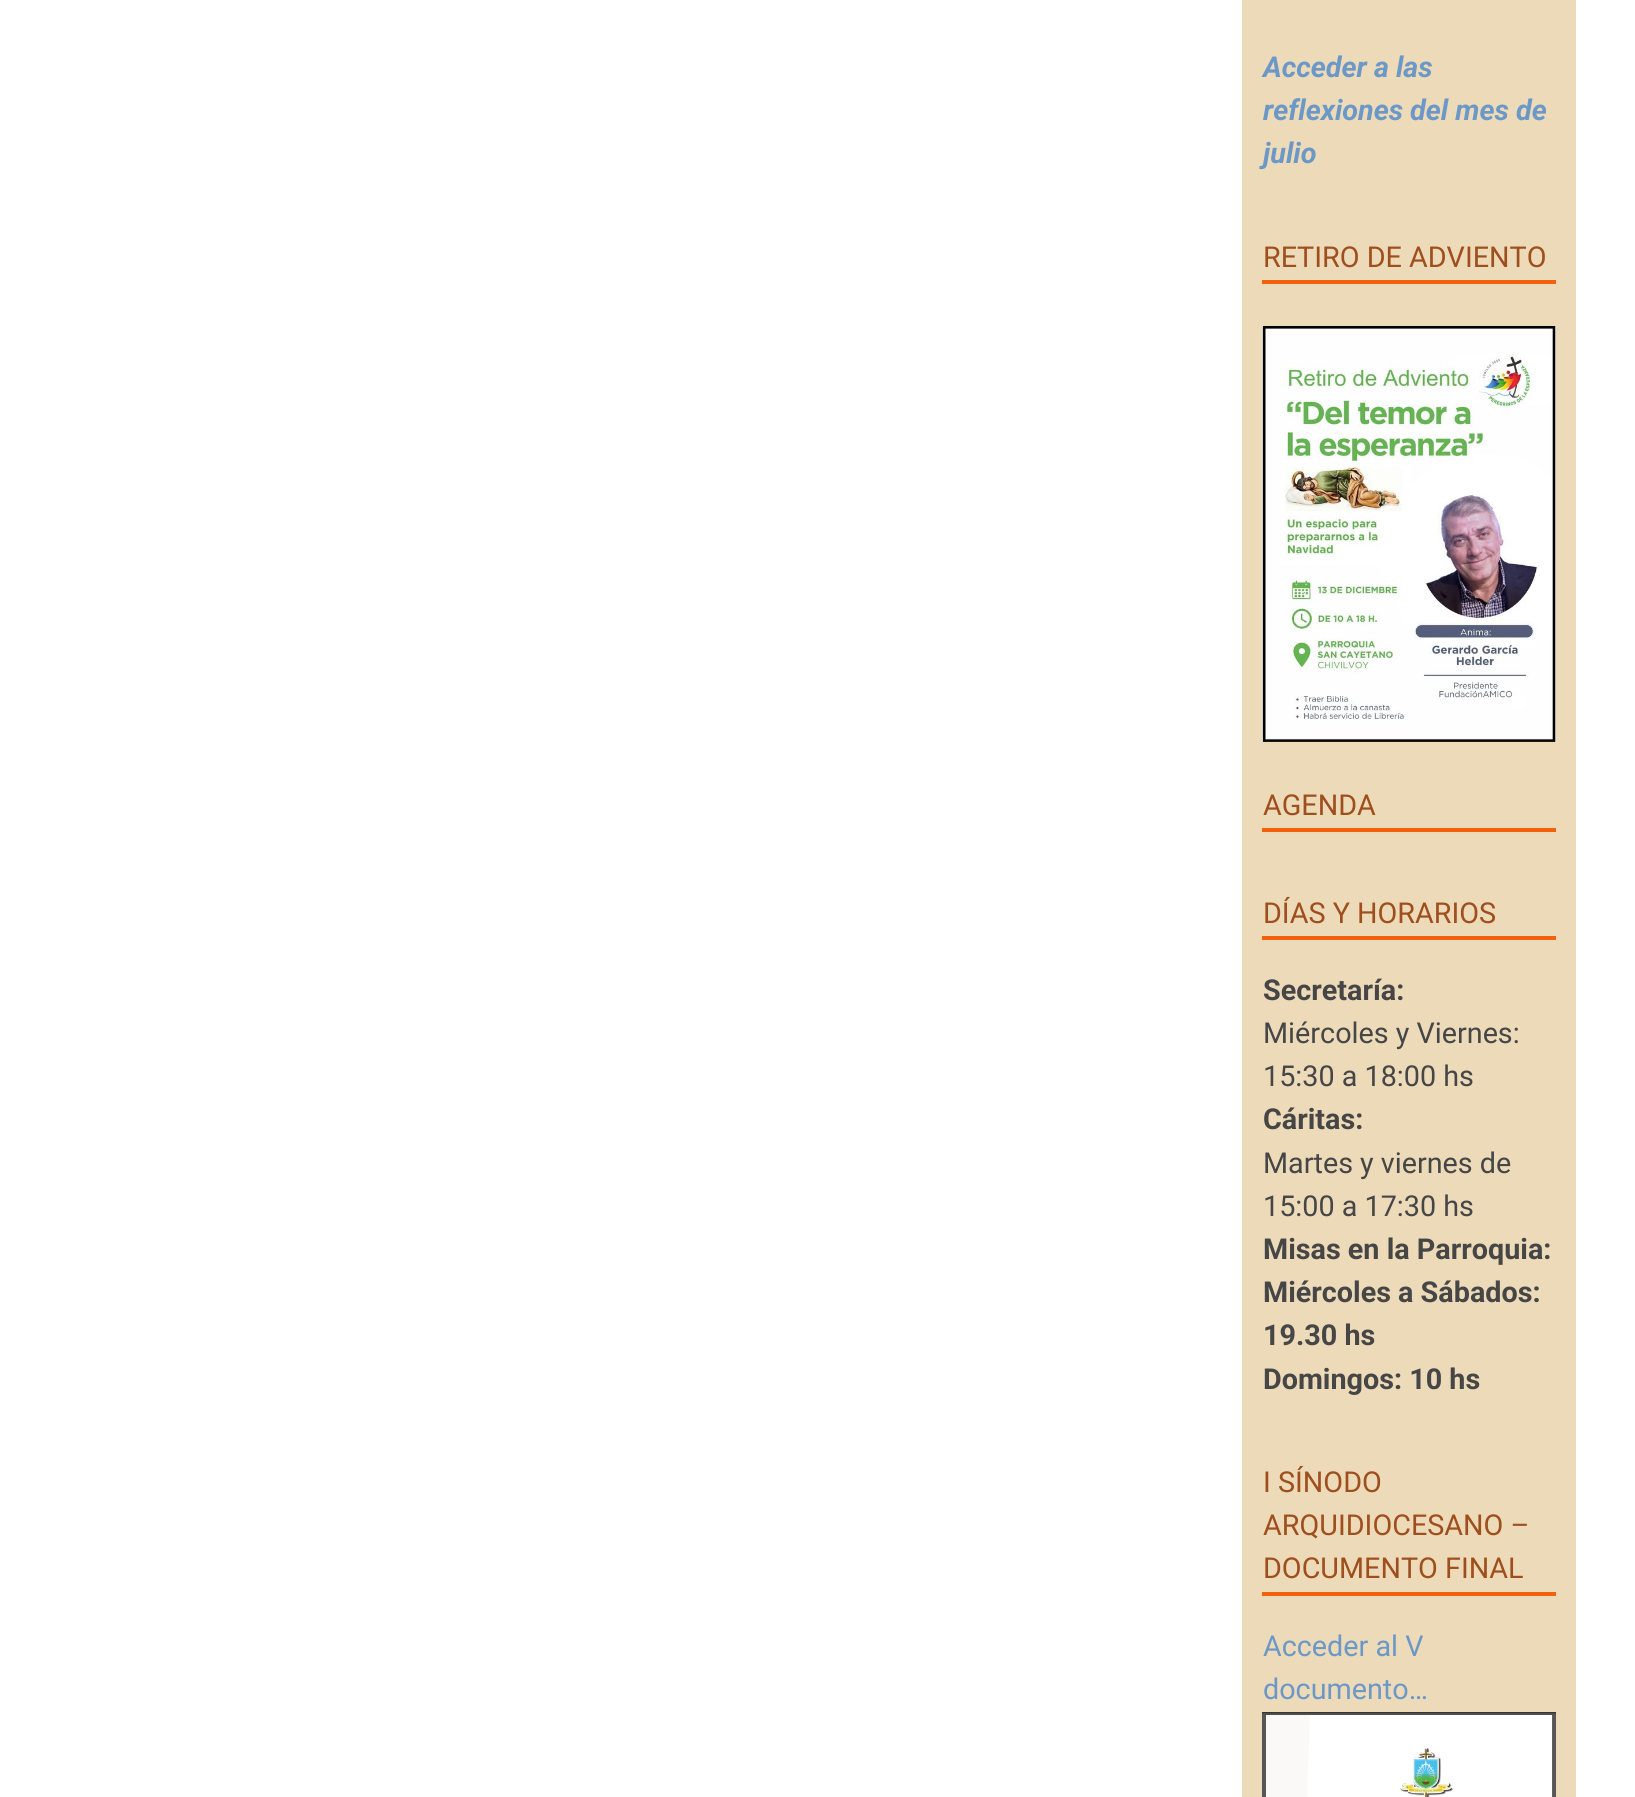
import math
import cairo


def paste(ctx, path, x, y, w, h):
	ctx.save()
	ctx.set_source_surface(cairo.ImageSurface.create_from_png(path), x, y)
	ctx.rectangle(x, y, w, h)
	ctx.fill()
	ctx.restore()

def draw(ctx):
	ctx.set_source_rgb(1, 1, 1)
	ctx.paint()
	ctx.set_source_rgb(0.925, 0.855, 0.725)
	ctx.rectangle(1242, 0, 334, 1797)
	ctx.fill()
	ctx.select_font_face('Roboto', cairo.FONT_SLANT_ITALIC, cairo.FONT_WEIGHT_BOLD)
	ctx.set_font_size(28.75)
	ctx.set_source_rgb(0.42, 0.596, 0.78)
	for x, y, s in [
		(1263, 77, 'Acceder a las'),
		(1263, 120, 'reflexiones del mes de'),
		(1263, 163, 'julio'),
	]:
		ctx.move_to(x, y)
		ctx.show_text(s)
	ctx.set_source_rgb(0.949, 0.384, 0.047)
	ctx.rectangle(1262, 280, 294, 4)
	ctx.fill()
	ctx.select_font_face('Roboto')
	ctx.set_source_rgb(0.624, 0.306, 0.114)
	ctx.move_to(1263, 267)
	ctx.show_text('RETIRO DE ADVIENTO')
	paste(ctx, 'media/1.png', 1262, 326, 294, 416)
	ctx.set_source_rgb(0.949, 0.384, 0.047)
	ctx.rectangle(1262, 828, 294, 4)
	ctx.fill()
	ctx.set_source_rgb(0.624, 0.306, 0.114)
	ctx.move_to(1263, 815)
	ctx.show_text('AGENDA')
	ctx.set_source_rgb(0.949, 0.384, 0.047)
	ctx.rectangle(1262, 936, 294, 4)
	ctx.fill()
	ctx.set_source_rgb(0.624, 0.306, 0.114)
	ctx.move_to(1263, 923)
	ctx.show_text('DÍAS Y HORARIOS')
	ctx.select_font_face('Roboto', cairo.FONT_SLANT_NORMAL, cairo.FONT_WEIGHT_BOLD)
	ctx.set_source_rgb(0.275, 0.275, 0.275)
	ctx.move_to(1263, 1000)
	ctx.show_text('Secretaría:')
	ctx.select_font_face('Roboto')
	ctx.move_to(1263, 1043)
	ctx.show_text('Miércoles y Viernes:')
	ctx.move_to(1263, 1086)
	ctx.show_text('15:30 a 18:00 hs')
	ctx.select_font_face('Roboto', cairo.FONT_SLANT_NORMAL, cairo.FONT_WEIGHT_BOLD)
	ctx.move_to(1263, 1129)
	ctx.show_text('Cáritas:')
	ctx.select_font_face('Roboto')
	ctx.move_to(1263, 1173)
	ctx.show_text('Martes y viernes de')
	ctx.move_to(1263, 1216)
	ctx.show_text('15:00 a 17:30 hs')
	ctx.select_font_face('Roboto', cairo.FONT_SLANT_NORMAL, cairo.FONT_WEIGHT_BOLD)
	for x, y, s in [
		(1263, 1259, 'Misas en la Parroquia:'),
		(1263, 1302, 'Miércoles a Sábados:'),
		(1263, 1345, '19.30 hs'),
		(1263, 1389, 'Domingos: 10 hs'),
	]:
		ctx.move_to(x, y)
		ctx.show_text(s)
	ctx.set_source_rgb(0.949, 0.384, 0.047)
	ctx.rectangle(1262, 1592, 294, 4)
	ctx.fill()
	ctx.select_font_face('Roboto')
	ctx.set_source_rgb(0.624, 0.306, 0.114)
	for x, y, s in [
		(1263, 1492, 'I SÍNODO'),
		(1263, 1535, 'ARQUIDIOCESANO –'),
		(1263, 1578, 'DOCUMENTO FINAL'),
	]:
		ctx.move_to(x, y)
		ctx.show_text(s)
	ctx.set_source_rgb(0.42, 0.596, 0.78)
	ctx.move_to(1263, 1656)
	ctx.show_text('Acceder al V')
	ctx.move_to(1263, 1699)
	ctx.show_text('documento…')
	paste(ctx, 'media/2.png', 1262, 1712, 294, 85)


surface = cairo.ImageSurface(cairo.FORMAT_RGB24, 1635, 1797)
ctx = cairo.Context(surface)
options = cairo.FontOptions()
options.set_hint_metrics(cairo.HINT_METRICS_OFF)
options.set_hint_style(cairo.HINT_STYLE_NONE)
ctx.set_font_options(options)
ctx.set_miter_limit(4)
draw(ctx)
surface.write_to_png('image.png')
